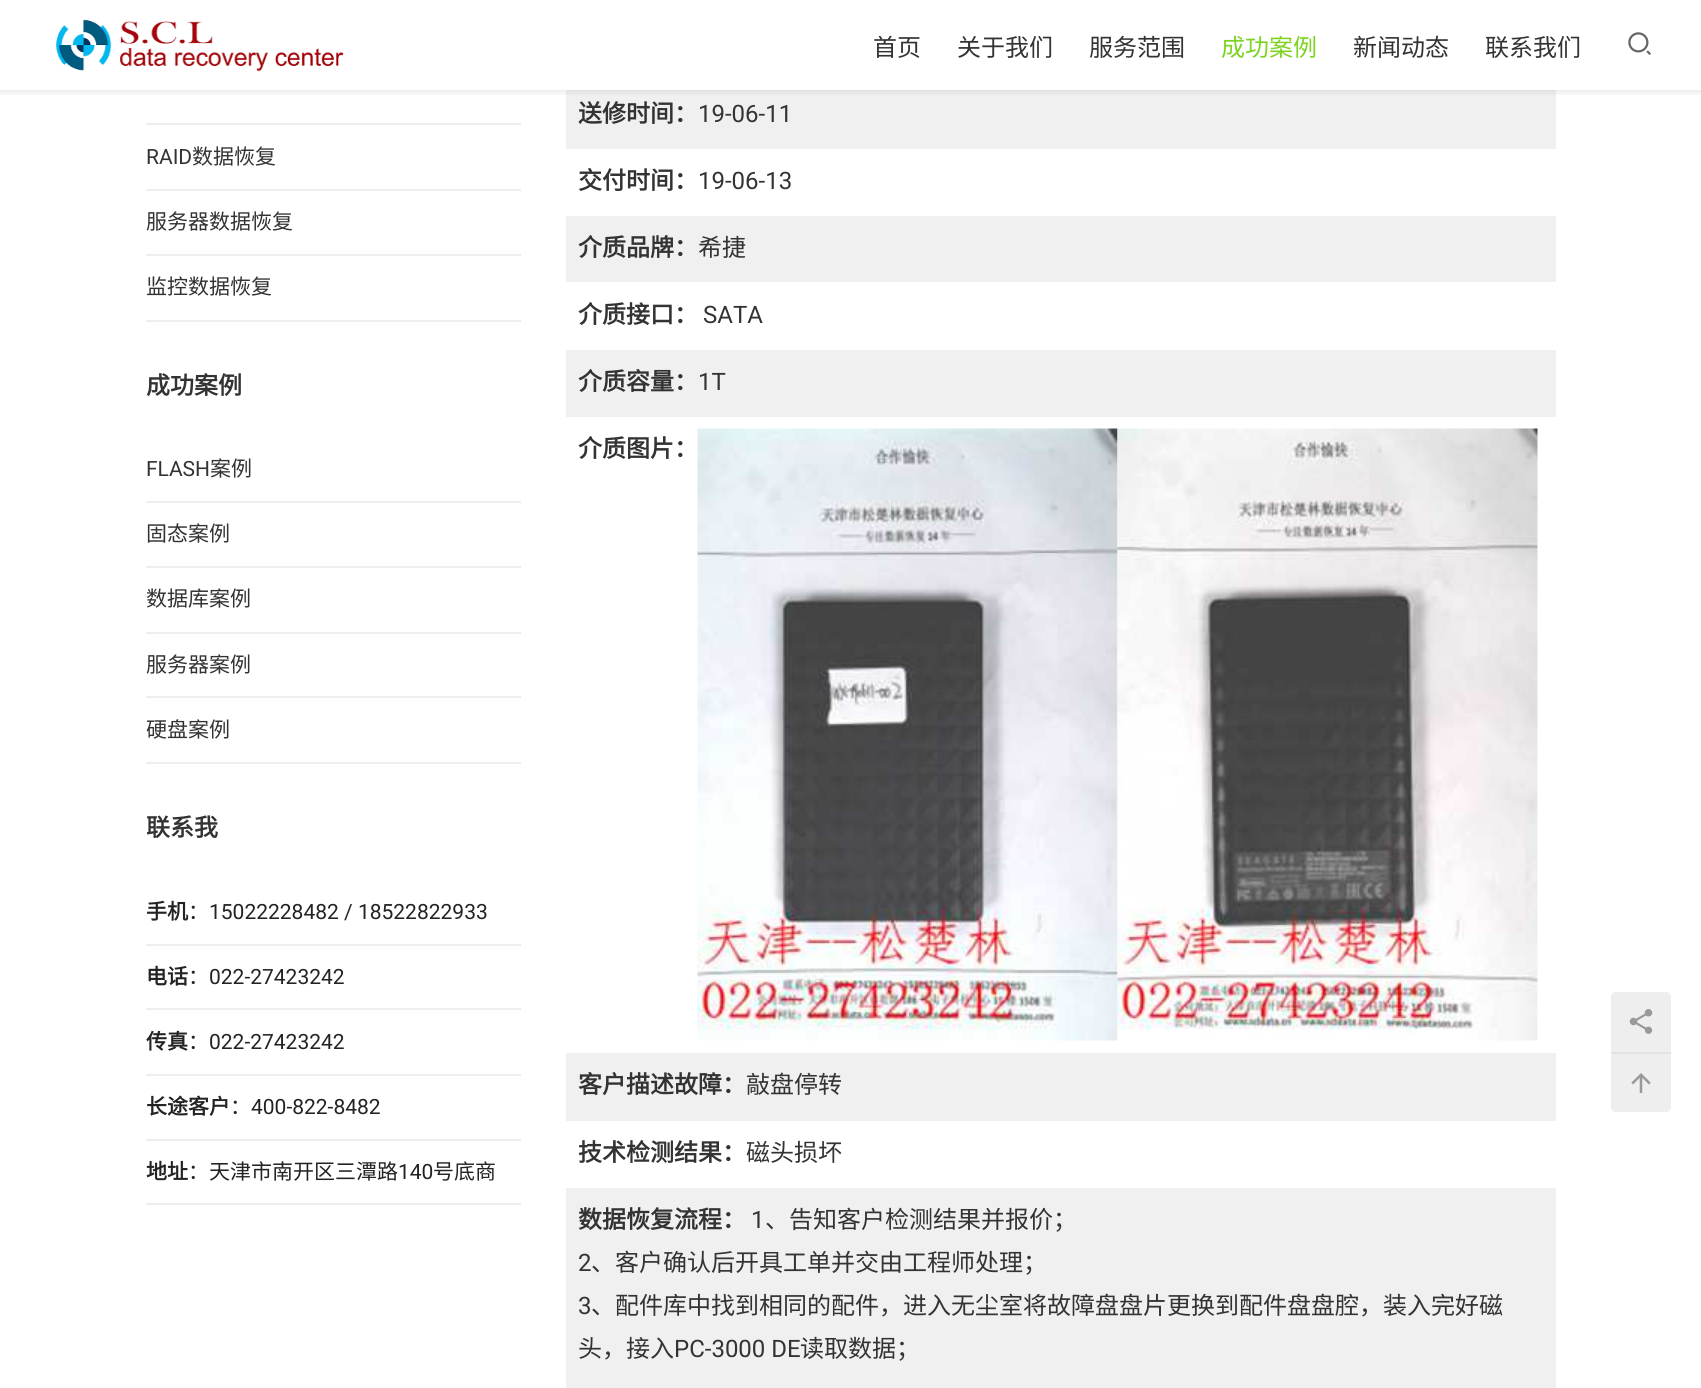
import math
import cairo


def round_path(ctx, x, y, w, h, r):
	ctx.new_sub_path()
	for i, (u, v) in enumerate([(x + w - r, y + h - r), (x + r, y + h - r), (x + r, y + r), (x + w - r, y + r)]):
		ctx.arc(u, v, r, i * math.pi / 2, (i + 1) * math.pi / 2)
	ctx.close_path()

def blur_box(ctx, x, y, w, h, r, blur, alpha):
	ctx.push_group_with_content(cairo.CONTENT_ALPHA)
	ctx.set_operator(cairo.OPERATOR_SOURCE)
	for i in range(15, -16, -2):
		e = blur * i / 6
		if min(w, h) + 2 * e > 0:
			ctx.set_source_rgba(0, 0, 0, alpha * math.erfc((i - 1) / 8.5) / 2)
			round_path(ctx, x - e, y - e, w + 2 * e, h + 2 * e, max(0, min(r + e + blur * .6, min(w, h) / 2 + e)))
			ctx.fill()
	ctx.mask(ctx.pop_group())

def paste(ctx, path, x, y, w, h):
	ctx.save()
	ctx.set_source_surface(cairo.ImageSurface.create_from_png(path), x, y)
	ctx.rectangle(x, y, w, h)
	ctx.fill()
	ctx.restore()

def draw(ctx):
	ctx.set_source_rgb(1, 1, 1)
	ctx.paint()
	ctx.set_source_rgb(0.933, 0.933, 0.933)
	ctx.rectangle(344, 59, 177, 2)
	ctx.fill()
	ctx.set_source_rgb(0.941, 0.941, 0.941)
	ctx.rectangle(566, 0, 990, 14)
	ctx.rectangle(566, 81, 990, 68)
	ctx.fill()
	ctx.save()
	ctx.rectangle(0, 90, 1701, 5)
	ctx.clip()
	ctx.set_source_rgb(0, 0, 0)
	blur_box(ctx, 0, 2, 1701, 90, 0, 4, 0.1)
	ctx.restore()
	ctx.set_source_rgba(1, 1, 1, 0.97)
	ctx.rectangle(344, 0, 1212, 90)
	ctx.fill()
	paste(ctx, 'media/1.png', 56, 16, 288, 56)
	ctx.select_font_face('Noto Sans CJK SC')
	ctx.set_font_size(24)
	ctx.set_source_rgb(0.2, 0.2, 0.2)
	for x, y, s in [
		(873, 56, '首页'),
		(957, 56, '关于我们'),
		(1089, 56, '服务范围'),
	]:
		ctx.move_to(x, y)
		ctx.show_text(s)
	ctx.set_source_rgb(0.494, 0.827, 0.129)
	ctx.move_to(1221, 56)
	ctx.show_text('成功案例')
	ctx.set_source_rgb(0.2, 0.2, 0.2)
	ctx.move_to(1353, 56)
	ctx.show_text('新闻动态')
	ctx.move_to(1485, 56)
	ctx.show_text('联系我们')
	paste(ctx, 'media/2.png', 1628, 32, 23, 23)
	ctx.set_source_rgb(0.933, 0.933, 0.933)
	ctx.rectangle(146, 123, 375, 2)
	ctx.fill()
	ctx.rectangle(146, 189, 375, 2)
	ctx.fill()
	ctx.select_font_face('Roboto')
	ctx.set_font_size(21)
	ctx.set_source_rgb(0.2, 0.2, 0.2)
	ctx.move_to(146, 164)
	ctx.show_text('RAID')
	ctx.select_font_face('Noto Sans CJK SC')
	ctx.move_to(192, 164)
	ctx.show_text('数据恢复')
	ctx.set_source_rgb(0.933, 0.933, 0.933)
	ctx.rectangle(146, 254, 375, 2)
	ctx.fill()
	ctx.set_source_rgb(0.2, 0.2, 0.2)
	ctx.move_to(146, 229)
	ctx.show_text('服务器数据恢复')
	ctx.set_source_rgb(0.933, 0.933, 0.933)
	ctx.rectangle(146, 320, 375, 2)
	ctx.fill()
	ctx.set_source_rgb(0.2, 0.2, 0.2)
	ctx.move_to(146, 294)
	ctx.show_text('监控数据恢复')
	ctx.select_font_face('Noto Sans CJK SC', cairo.FONT_SLANT_NORMAL, cairo.FONT_WEIGHT_BOLD)
	ctx.set_font_size(24)
	ctx.move_to(146, 394)
	ctx.show_text('成功案例')
	ctx.set_source_rgb(0.933, 0.933, 0.933)
	ctx.rectangle(146, 501, 375, 2)
	ctx.fill()
	ctx.select_font_face('Roboto')
	ctx.set_font_size(21)
	ctx.set_source_rgb(0.2, 0.2, 0.2)
	ctx.move_to(146, 476)
	ctx.show_text('FLASH')
	ctx.select_font_face('Noto Sans CJK SC')
	ctx.move_to(210, 476)
	ctx.show_text('案例')
	ctx.set_source_rgb(0.933, 0.933, 0.933)
	ctx.rectangle(146, 566, 375, 2)
	ctx.fill()
	ctx.set_source_rgb(0.2, 0.2, 0.2)
	ctx.move_to(146, 541)
	ctx.show_text('固态案例')
	ctx.set_source_rgb(0.933, 0.933, 0.933)
	ctx.rectangle(146, 632, 375, 2)
	ctx.fill()
	ctx.set_source_rgb(0.2, 0.2, 0.2)
	ctx.move_to(146, 606)
	ctx.show_text('数据库案例')
	ctx.set_source_rgb(0.933, 0.933, 0.933)
	ctx.rectangle(146, 696, 375, 2)
	ctx.fill()
	ctx.set_source_rgb(0.2, 0.2, 0.2)
	ctx.move_to(146, 672)
	ctx.show_text('服务器案例')
	ctx.set_source_rgb(0.933, 0.933, 0.933)
	ctx.rectangle(146, 762, 375, 2)
	ctx.fill()
	ctx.set_source_rgb(0.2, 0.2, 0.2)
	ctx.move_to(146, 737)
	ctx.show_text('硬盘案例')
	ctx.select_font_face('Noto Sans CJK SC', cairo.FONT_SLANT_NORMAL, cairo.FONT_WEIGHT_BOLD)
	ctx.set_font_size(24)
	ctx.move_to(146, 836)
	ctx.show_text('联系我')
	ctx.set_source_rgb(0.933, 0.933, 0.933)
	ctx.rectangle(146, 944, 375, 2)
	ctx.fill()
	ctx.set_font_size(21)
	ctx.set_source_rgb(0.137, 0.137, 0.137)
	ctx.move_to(146, 919)
	ctx.show_text('手机')
	ctx.select_font_face('Noto Sans CJK SC')
	ctx.move_to(188, 919)
	ctx.show_text('：')
	ctx.select_font_face('Roboto')
	ctx.move_to(209, 919)
	ctx.show_text('15022228482 / 18522822933')
	ctx.set_source_rgb(0.933, 0.933, 0.933)
	ctx.rectangle(146, 1008, 375, 2)
	ctx.fill()
	ctx.select_font_face('Noto Sans CJK SC', cairo.FONT_SLANT_NORMAL, cairo.FONT_WEIGHT_BOLD)
	ctx.set_source_rgb(0.137, 0.137, 0.137)
	ctx.move_to(146, 984)
	ctx.show_text('电话')
	ctx.select_font_face('Noto Sans CJK SC')
	ctx.move_to(188, 984)
	ctx.show_text('：')
	ctx.select_font_face('Roboto')
	ctx.move_to(209, 984)
	ctx.show_text('022-27423242')
	ctx.set_source_rgb(0.933, 0.933, 0.933)
	ctx.rectangle(146, 1074, 375, 2)
	ctx.fill()
	ctx.select_font_face('Noto Sans CJK SC', cairo.FONT_SLANT_NORMAL, cairo.FONT_WEIGHT_BOLD)
	ctx.set_source_rgb(0.137, 0.137, 0.137)
	ctx.move_to(146, 1049)
	ctx.show_text('传真')
	ctx.select_font_face('Noto Sans CJK SC')
	ctx.move_to(188, 1049)
	ctx.show_text('：')
	ctx.select_font_face('Roboto')
	ctx.move_to(209, 1049)
	ctx.show_text('022-27423242')
	ctx.set_source_rgb(0.933, 0.933, 0.933)
	ctx.rectangle(146, 1139, 375, 2)
	ctx.fill()
	ctx.select_font_face('Noto Sans CJK SC', cairo.FONT_SLANT_NORMAL, cairo.FONT_WEIGHT_BOLD)
	ctx.set_source_rgb(0.137, 0.137, 0.137)
	ctx.move_to(146, 1114)
	ctx.show_text('长途客户')
	ctx.select_font_face('Noto Sans CJK SC')
	ctx.move_to(230, 1114)
	ctx.show_text('：')
	ctx.select_font_face('Roboto')
	ctx.move_to(251, 1114)
	ctx.show_text('400-822-8482')
	ctx.set_source_rgb(0.933, 0.933, 0.933)
	ctx.rectangle(146, 1203, 375, 2)
	ctx.fill()
	ctx.select_font_face('Noto Sans CJK SC', cairo.FONT_SLANT_NORMAL, cairo.FONT_WEIGHT_BOLD)
	ctx.set_source_rgb(0.137, 0.137, 0.137)
	ctx.move_to(146, 1179)
	ctx.show_text('地址')
	ctx.select_font_face('Noto Sans CJK SC')
	ctx.move_to(188, 1179)
	ctx.show_text('：天津市南开区三潭路')
	ctx.select_font_face('Roboto')
	ctx.move_to(398, 1179)
	ctx.show_text('140')
	ctx.select_font_face('Noto Sans CJK SC')
	ctx.move_to(433, 1179)
	ctx.show_text('号底商')
	ctx.select_font_face('Noto Sans CJK SC', cairo.FONT_SLANT_NORMAL, cairo.FONT_WEIGHT_BOLD)
	ctx.set_font_size(24)
	ctx.set_source_rgb(0.2, 0.2, 0.2)
	ctx.move_to(578, 122)
	ctx.show_text('送修时间：')
	ctx.select_font_face('Roboto')
	ctx.move_to(698, 122)
	ctx.show_text('19-06-11')
	ctx.select_font_face('Noto Sans CJK SC', cairo.FONT_SLANT_NORMAL, cairo.FONT_WEIGHT_BOLD)
	ctx.move_to(578, 189)
	ctx.show_text('交付时间：')
	ctx.select_font_face('Roboto')
	ctx.move_to(698, 189)
	ctx.show_text('19-06-13')
	ctx.set_source_rgb(0.941, 0.941, 0.941)
	ctx.rectangle(566, 216, 990, 66)
	ctx.fill()
	ctx.select_font_face('Noto Sans CJK SC', cairo.FONT_SLANT_NORMAL, cairo.FONT_WEIGHT_BOLD)
	ctx.set_source_rgb(0.2, 0.2, 0.2)
	ctx.move_to(578, 256)
	ctx.show_text('介质品牌：')
	ctx.select_font_face('Noto Sans CJK SC')
	ctx.move_to(698, 256)
	ctx.show_text('希捷')
	ctx.select_font_face('Noto Sans CJK SC', cairo.FONT_SLANT_NORMAL, cairo.FONT_WEIGHT_BOLD)
	ctx.move_to(578, 323)
	ctx.show_text('介质接口：')
	ctx.select_font_face('Roboto')
	ctx.move_to(703, 323)
	ctx.show_text('SATA')
	ctx.set_source_rgb(0.941, 0.941, 0.941)
	ctx.rectangle(566, 350, 990, 67)
	ctx.fill()
	ctx.select_font_face('Noto Sans CJK SC', cairo.FONT_SLANT_NORMAL, cairo.FONT_WEIGHT_BOLD)
	ctx.set_source_rgb(0.2, 0.2, 0.2)
	ctx.move_to(578, 390)
	ctx.show_text('介质容量：')
	ctx.select_font_face('Roboto')
	ctx.move_to(698, 390)
	ctx.show_text('1T')
	ctx.select_font_face('Noto Sans CJK SC', cairo.FONT_SLANT_NORMAL, cairo.FONT_WEIGHT_BOLD)
	ctx.move_to(578, 457)
	ctx.show_text('介质图片：')
	paste(ctx, 'media/3.png', 697, 428, 421, 613)
	paste(ctx, 'media/4.png', 1117, 428, 421, 613)
	ctx.set_source_rgb(0.941, 0.941, 0.941)
	ctx.rectangle(566, 1053, 990, 68)
	ctx.fill()
	ctx.set_source_rgb(0.2, 0.2, 0.2)
	ctx.move_to(578, 1093)
	ctx.show_text('客户描述故障：')
	ctx.select_font_face('Noto Sans CJK SC')
	ctx.move_to(746, 1093)
	ctx.show_text('敲盘停转')
	ctx.select_font_face('Noto Sans CJK SC', cairo.FONT_SLANT_NORMAL, cairo.FONT_WEIGHT_BOLD)
	ctx.move_to(578, 1161)
	ctx.show_text('技术检测结果：')
	ctx.select_font_face('Noto Sans CJK SC')
	ctx.move_to(746, 1161)
	ctx.show_text('磁头损坏')
	ctx.set_source_rgb(0.941, 0.941, 0.941)
	ctx.rectangle(566, 1188, 990, 200)
	ctx.fill()
	ctx.select_font_face('Noto Sans CJK SC', cairo.FONT_SLANT_NORMAL, cairo.FONT_WEIGHT_BOLD)
	ctx.set_source_rgb(0.2, 0.2, 0.2)
	ctx.move_to(578, 1228)
	ctx.show_text('数据恢复流程：')
	ctx.select_font_face('Roboto')
	ctx.move_to(751, 1228)
	ctx.show_text('1')
	ctx.select_font_face('Noto Sans CJK SC')
	ctx.move_to(765, 1228)
	ctx.show_text('、告知客户检测结果并报价；')
	ctx.select_font_face('Roboto')
	ctx.move_to(578, 1271)
	ctx.show_text('2')
	ctx.select_font_face('Noto Sans CJK SC')
	ctx.move_to(591, 1271)
	ctx.show_text('、客户确认后开具工单并交由工程师处理；')
	ctx.select_font_face('Roboto')
	ctx.move_to(578, 1314)
	ctx.show_text('3')
	ctx.select_font_face('Noto Sans CJK SC')
	ctx.move_to(591, 1314)
	ctx.show_text('、配件库中找到相同的配件，进入无尘室将故障盘盘片更换到配件盘盘腔，装入完好磁')
	ctx.move_to(578, 1357)
	ctx.show_text('头，接入')
	ctx.select_font_face('Roboto')
	ctx.move_to(674, 1357)
	ctx.show_text('PC-3000 DE')
	ctx.select_font_face('Noto Sans CJK SC')
	ctx.move_to(800, 1357)
	ctx.show_text('读取数据；')
	ctx.set_source_rgb(0.933, 0.933, 0.933)
	ctx.new_path()
	ctx.move_to(1616, 992)
	ctx.line_to(1666, 992)
	ctx.curve_to(1669, 992, 1671, 994, 1671, 997)
	ctx.line_to(1671, 1052)
	ctx.line_to(1611, 1052)
	ctx.line_to(1611, 997)
	ctx.curve_to(1611, 994, 1613, 992, 1616, 992)
	ctx.close_path()
	ctx.fill()
	paste(ctx, 'media/5.png', 1629, 1009, 24, 25)
	ctx.new_path()
	ctx.move_to(1611, 1052)
	ctx.line_to(1671, 1052)
	ctx.line_to(1671, 1107)
	ctx.curve_to(1671, 1110, 1669, 1112, 1666, 1112)
	ctx.line_to(1616, 1112)
	ctx.curve_to(1613, 1112, 1611, 1110, 1611, 1107)
	ctx.close_path()
	ctx.fill()
	ctx.set_source_rgb(0.886, 0.886, 0.886)
	ctx.rectangle(1611, 1052, 60, 2)
	ctx.fill()
	paste(ctx, 'media/6.png', 1631, 1073, 20, 20)


surface = cairo.ImageSurface(cairo.FORMAT_RGB24, 1701, 1388)
ctx = cairo.Context(surface)
options = cairo.FontOptions()
options.set_hint_metrics(cairo.HINT_METRICS_OFF)
options.set_hint_style(cairo.HINT_STYLE_NONE)
ctx.set_font_options(options)
ctx.set_miter_limit(4)
draw(ctx)
surface.write_to_png('image.png')
